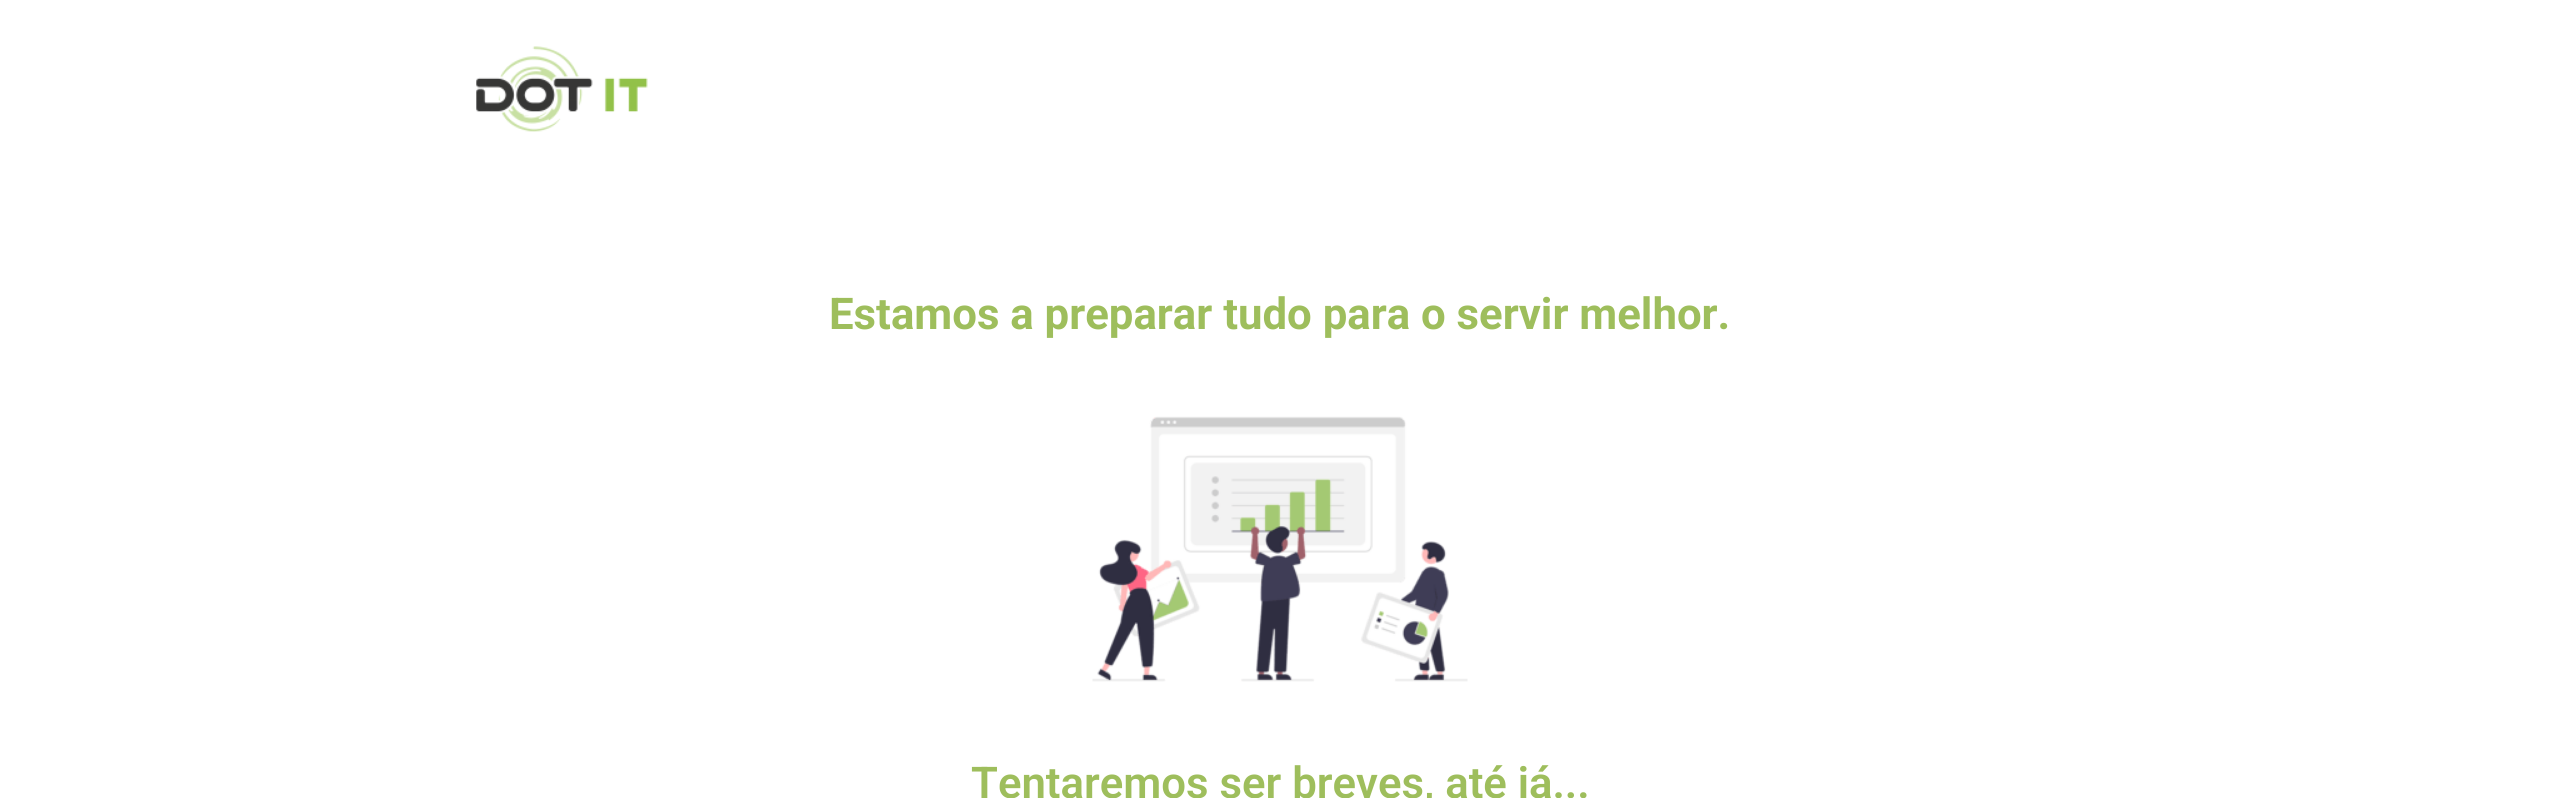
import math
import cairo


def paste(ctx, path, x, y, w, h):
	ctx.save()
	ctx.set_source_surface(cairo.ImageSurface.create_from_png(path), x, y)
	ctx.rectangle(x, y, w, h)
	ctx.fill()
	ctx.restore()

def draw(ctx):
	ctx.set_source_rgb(1, 1, 1)
	ctx.paint()
	paste(ctx, 'media/1.png', 476, 46, 172, 86)
	ctx.select_font_face('Roboto', cairo.FONT_SLANT_NORMAL, cairo.FONT_WEIGHT_BOLD)
	ctx.set_font_size(43.75)
	ctx.set_source_rgb(0.62, 0.745, 0.361)
	ctx.move_to(829, 329)
	ctx.show_text('Estamos a preparar tudo para o servir melhor.')
	paste(ctx, 'media/2.png', 1092, 416, 376, 266)
	ctx.select_font_face('Roboto SemiBold')
	ctx.move_to(971, 798)
	ctx.show_text('Tentaremos ser breves, até já...')


surface = cairo.ImageSurface(cairo.FORMAT_RGB24, 2559, 798)
ctx = cairo.Context(surface)
options = cairo.FontOptions()
options.set_hint_metrics(cairo.HINT_METRICS_OFF)
options.set_hint_style(cairo.HINT_STYLE_NONE)
ctx.set_font_options(options)
ctx.set_miter_limit(4)
draw(ctx)
surface.write_to_png('image.png')
